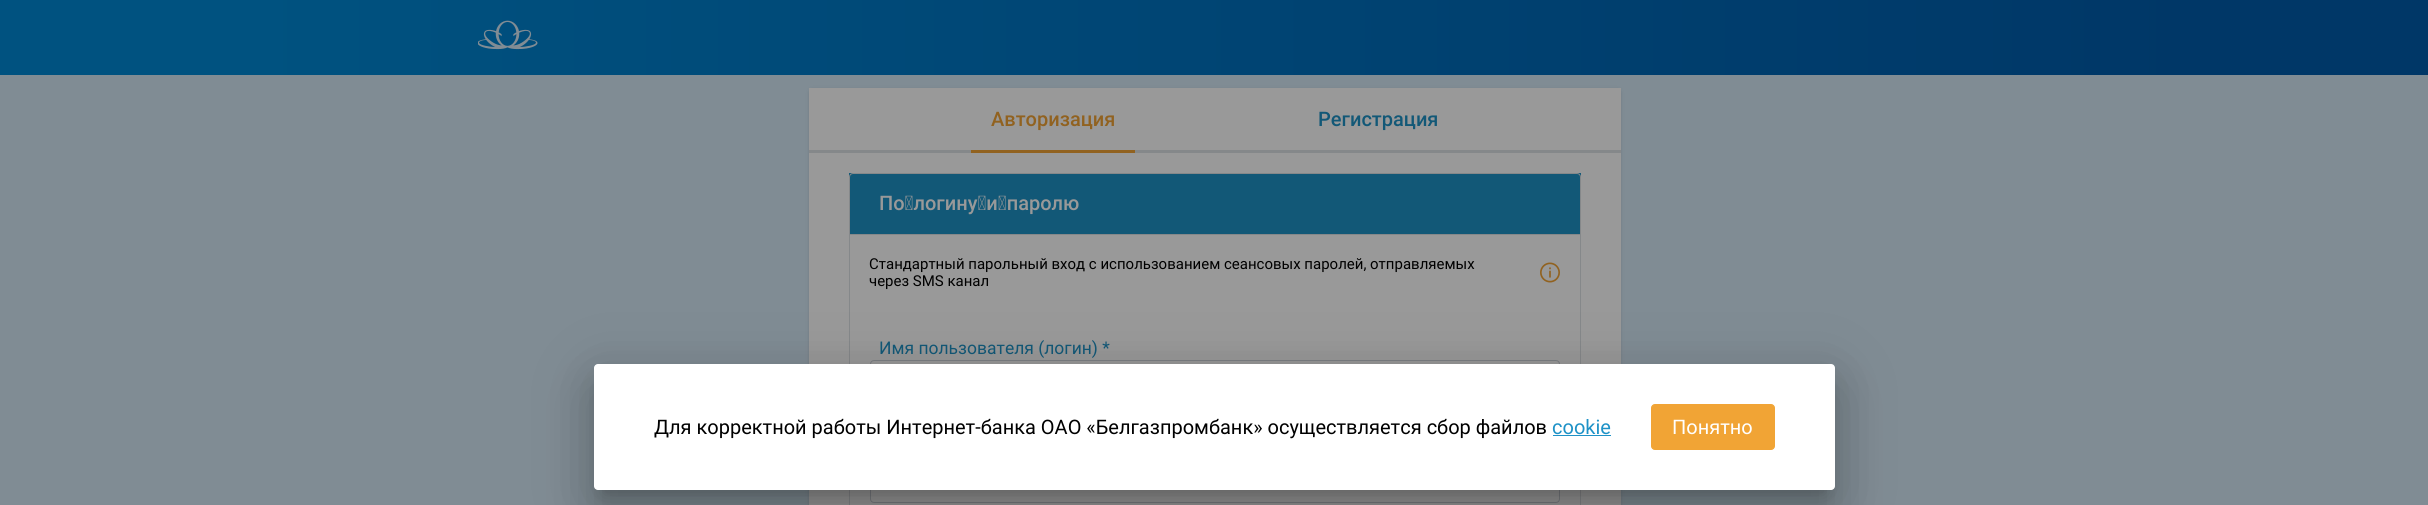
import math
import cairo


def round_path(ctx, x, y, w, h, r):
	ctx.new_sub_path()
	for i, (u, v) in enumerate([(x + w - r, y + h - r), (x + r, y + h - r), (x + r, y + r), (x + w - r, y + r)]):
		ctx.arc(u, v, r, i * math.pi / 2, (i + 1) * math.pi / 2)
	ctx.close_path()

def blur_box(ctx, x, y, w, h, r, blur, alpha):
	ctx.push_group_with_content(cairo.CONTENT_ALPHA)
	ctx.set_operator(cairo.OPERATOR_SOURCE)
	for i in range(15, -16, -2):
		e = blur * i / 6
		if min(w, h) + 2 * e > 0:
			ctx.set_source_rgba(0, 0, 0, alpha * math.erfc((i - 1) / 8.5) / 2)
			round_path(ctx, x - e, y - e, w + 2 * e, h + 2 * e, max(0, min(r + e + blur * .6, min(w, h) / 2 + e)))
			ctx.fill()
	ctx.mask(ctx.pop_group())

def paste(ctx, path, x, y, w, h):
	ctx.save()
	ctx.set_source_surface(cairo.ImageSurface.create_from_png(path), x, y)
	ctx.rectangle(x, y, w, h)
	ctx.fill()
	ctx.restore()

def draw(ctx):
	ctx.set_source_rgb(0.502, 0.549, 0.58)
	ctx.paint()
	gradient = cairo.LinearGradient(0, 38, 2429, 37)
	gradient.add_color_stop_rgba(0.1, 0, 0.322, 0.502, 1)
	gradient.add_color_stop_rgba(0.9, 0, 0.216, 0.404, 1)
	ctx.set_source(gradient)
	ctx.rectangle(0, 0, 2428, 75)
	ctx.fill()
	paste(ctx, 'media/1.png', 478, 20, 60, 30)
	ctx.set_source_rgb(0, 0, 0)
	blur_box(ctx, 809, 89, 812, 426, 4, 2, 0.12)
	ctx.set_source_rgb(0.6, 0.6, 0.6)
	ctx.rectangle(809, 153, 812, 352)
	ctx.rectangle(809, 88, 812, 62)
	ctx.fill()
	ctx.set_source_rgb(0.522, 0.533, 0.541)
	ctx.rectangle(809, 150, 812, 3)
	ctx.fill()
	ctx.set_source_rgb(0.569, 0.384, 0.125)
	ctx.rectangle(971, 150, 164, 3)
	ctx.fill()
	ctx.select_font_face('Roboto Medium')
	ctx.set_font_size(20)
	ctx.move_to(991, 126)
	ctx.show_text('Авторизация')
	ctx.set_source_rgb(0.6, 0.6, 0.6)
	ctx.new_path()
	ctx.move_to(1302, 90)
	ctx.line_to(1454, 90)
	ctx.curve_to(1456, 90, 1458, 92, 1458, 94)
	ctx.line_to(1458, 153)
	ctx.line_to(1298, 153)
	ctx.line_to(1298, 94)
	ctx.curve_to(1298, 92, 1300, 90, 1302, 90)
	ctx.close_path()
	ctx.fill()
	ctx.set_source_rgb(0.522, 0.533, 0.541)
	ctx.rectangle(1298, 150, 160, 3)
	ctx.fill()
	ctx.set_source_rgb(0.071, 0.345, 0.467)
	ctx.move_to(1318, 126)
	ctx.show_text('Регистрация')
	ctx.rectangle(849, 173, 732, 61)
	ctx.fill()
	ctx.new_path()
	ctx.move_to(853, 173.5)
	ctx.line_to(1577, 173.5)
	ctx.curve_to(1579, 173.5, 1580.5, 175, 1580.5, 177)
	ctx.line_to(1580.5, 234.5)
	ctx.line_to(849.5, 234.5)
	ctx.line_to(849.5, 177)
	ctx.curve_to(849.5, 175, 851, 173.5, 853, 173.5)
	ctx.close_path()
	ctx.set_source_rgb(0.522, 0.533, 0.541)
	ctx.set_line_width(1)
	ctx.stroke()
	ctx.set_source_rgb(0.6, 0.6, 0.6)
	ctx.move_to(879, 210)
	ctx.show_text('По логину и паролю')
	ctx.set_source_rgb(0.522, 0.533, 0.541)
	ctx.rectangle(1580, 235, 1, 270)
	ctx.fill()
	ctx.rectangle(849, 235, 1, 270)
	ctx.fill()
	ctx.select_font_face('Roboto')
	ctx.set_font_size(15)
	ctx.set_source_rgb(0, 0, 0)
	ctx.move_to(869, 269)
	ctx.show_text('Стандартный парольный вход с использованием сеансовых паролей, отправляемых')
	ctx.move_to(869, 286)
	ctx.show_text('через SMS канал')
	paste(ctx, 'media/2.png', 1540, 262, 20, 21)
	ctx.set_font_size(17.5)
	ctx.set_source_rgb(0.071, 0.345, 0.467)
	ctx.move_to(879, 354)
	ctx.show_text('Имя пользователя (логин) *')
	round_path(ctx, 870.5, 360.5, 689, 45, 3.5)
	ctx.set_source_rgb(0.486, 0.498, 0.514)
	ctx.stroke()
	round_path(ctx, 870.5, 456.5, 689, 46, 3.5)
	ctx.stroke()
	ctx.set_source_rgb(0, 0, 0)
	blur_box(ctx, 584, 365, 1261, 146, 14, 29, 0.12)
	blur_box(ctx, 590, 390, 1249, 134, 8, 24, 0.14)
	blur_box(ctx, 603, 386, 1223, 109, 0, 9.5, 0.2)
	ctx.set_source_rgb(1, 1, 1)
	round_path(ctx, 594, 364, 1241, 126, 4)
	ctx.fill()
	ctx.set_font_size(20)
	ctx.set_source_rgb(0, 0, 0)
	ctx.move_to(654, 434)
	ctx.show_text('Для корректной работы Интернет-банка ОАО «Белгазпромбанк» осуществляется сбор файлов')
	ctx.set_source_rgb(0.118, 0.573, 0.78)
	ctx.move_to(1552, 434)
	ctx.show_text('cookie')
	ctx.rectangle(1553, 435, 58, 1)
	ctx.fill()
	ctx.set_source_rgb(0.945, 0.643, 0.208)
	round_path(ctx, 1651.5, 404.5, 123, 45, 3.5)
	ctx.fill_preserve()
	ctx.stroke()
	ctx.set_source_rgb(1, 1, 1)
	ctx.move_to(1672, 434)
	ctx.show_text('Понятно')


surface = cairo.ImageSurface(cairo.FORMAT_RGB24, 2428, 505)
ctx = cairo.Context(surface)
options = cairo.FontOptions()
options.set_hint_metrics(cairo.HINT_METRICS_OFF)
options.set_hint_style(cairo.HINT_STYLE_NONE)
ctx.set_font_options(options)
ctx.set_miter_limit(4)
draw(ctx)
surface.write_to_png('image.png')
